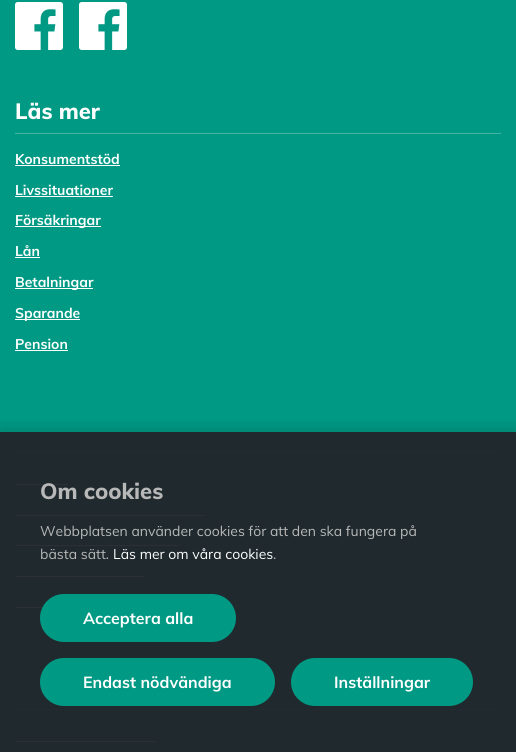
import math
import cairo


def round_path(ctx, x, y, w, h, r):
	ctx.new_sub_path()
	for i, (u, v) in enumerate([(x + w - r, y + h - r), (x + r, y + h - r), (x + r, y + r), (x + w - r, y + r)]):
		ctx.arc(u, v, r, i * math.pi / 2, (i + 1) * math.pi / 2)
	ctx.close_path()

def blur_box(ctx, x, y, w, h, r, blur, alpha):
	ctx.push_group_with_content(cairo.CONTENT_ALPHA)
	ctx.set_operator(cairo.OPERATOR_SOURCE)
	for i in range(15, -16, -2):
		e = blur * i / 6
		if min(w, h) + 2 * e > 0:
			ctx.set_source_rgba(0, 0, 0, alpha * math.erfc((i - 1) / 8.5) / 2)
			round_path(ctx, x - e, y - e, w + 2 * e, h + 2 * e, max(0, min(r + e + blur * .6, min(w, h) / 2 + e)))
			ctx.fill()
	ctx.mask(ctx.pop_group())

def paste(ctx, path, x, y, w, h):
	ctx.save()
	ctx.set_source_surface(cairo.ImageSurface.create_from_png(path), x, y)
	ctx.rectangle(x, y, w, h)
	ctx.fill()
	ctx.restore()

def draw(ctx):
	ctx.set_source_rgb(0, 0.6, 0.518)
	ctx.paint()
	paste(ctx, 'media/1.png', 15, 2, 48, 48)
	paste(ctx, 'media/1.png', 79, 2, 48, 48)
	ctx.set_source_rgb(0.251, 0.702, 0.639)
	ctx.rectangle(15, 133, 486, 1)
	ctx.fill()
	ctx.select_font_face('Muli ExtraBold')
	ctx.set_font_size(22)
	ctx.set_source_rgb(1, 1, 1)
	ctx.move_to(15, 119)
	ctx.show_text('Läs mer')
	ctx.select_font_face('Muli', cairo.FONT_SLANT_NORMAL, cairo.FONT_WEIGHT_BOLD)
	ctx.set_font_size(14)
	ctx.move_to(15, 164)
	ctx.show_text('Konsumentstöd')
	ctx.rectangle(15, 165, 105, 1)
	ctx.fill()
	ctx.move_to(15, 195)
	ctx.show_text('Livssituationer')
	ctx.rectangle(15, 196, 98, 1)
	ctx.fill()
	ctx.rectangle(15, 226, 86, 1)
	ctx.fill()
	ctx.move_to(15, 225)
	ctx.show_text('Försäkringar')
	ctx.move_to(15, 256)
	ctx.show_text('Lån')
	ctx.rectangle(15, 257, 25, 1)
	ctx.fill()
	ctx.rectangle(15, 288, 78, 1)
	ctx.fill()
	ctx.move_to(15, 287)
	ctx.show_text('Betalningar')
	ctx.rectangle(15, 319, 65, 1)
	ctx.fill()
	ctx.move_to(15, 318)
	ctx.show_text('Sparande')
	ctx.move_to(15, 349)
	ctx.show_text('Pension')
	ctx.rectangle(15, 350, 53, 1)
	ctx.fill()
	ctx.set_source_rgb(0.251, 0.702, 0.639)
	ctx.rectangle(15, 452, 486, 1)
	ctx.fill()
	ctx.set_source_rgb(1, 1, 1)
	ctx.rectangle(15, 484, 53, 1)
	ctx.rectangle(15, 515, 189, 1)
	ctx.rectangle(15, 545, 164, 1)
	ctx.rectangle(15, 576, 129, 1)
	ctx.rectangle(15, 607, 28, 1)
	ctx.fill()
	ctx.set_source_rgb(0.251, 0.702, 0.639)
	ctx.rectangle(15, 709, 486, 1)
	ctx.fill()
	ctx.set_source_rgb(1, 1, 1)
	ctx.rectangle(15, 741, 140, 1)
	ctx.fill()
	ctx.save()
	ctx.rectangle(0, 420, 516, 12)
	ctx.clip()
	ctx.set_source_rgb(0, 0, 0)
	blur_box(ctx, 0, 432, 516, 320, 0, 9, 0.2)
	ctx.restore()
	ctx.set_source_rgba(0.133, 0.145, 0.165, 0.95)
	ctx.rectangle(0, 432, 516, 320)
	ctx.fill()
	ctx.select_font_face('Muli ExtraBold')
	ctx.set_font_size(22)
	ctx.set_source_rgb(0.722, 0.722, 0.722)
	ctx.move_to(40, 499)
	ctx.show_text('Om cookies')
	ctx.select_font_face('Muli')
	ctx.set_font_size(14)
	ctx.move_to(40, 536)
	ctx.show_text('Webbplatsen använder cookies för att den ska fungera på')
	ctx.move_to(40, 559)
	ctx.show_text('bästa sätt.')
	ctx.set_source_rgb(1, 1, 1)
	ctx.move_to(113, 559)
	ctx.show_text('Läs mer om våra cookies')
	ctx.set_source_rgb(0.722, 0.722, 0.722)
	ctx.move_to(273, 559)
	ctx.show_text('.')
	ctx.set_source_rgb(0, 0.6, 0.518)
	round_path(ctx, 40, 594, 196, 48, 24)
	ctx.fill()
	ctx.select_font_face('Muli', cairo.FONT_SLANT_NORMAL, cairo.FONT_WEIGHT_BOLD)
	ctx.set_font_size(16)
	ctx.set_source_rgb(1, 1, 1)
	ctx.move_to(83, 624)
	ctx.show_text('Acceptera alla')
	ctx.set_source_rgb(0, 0.6, 0.518)
	round_path(ctx, 40, 658, 235, 48, 24)
	ctx.fill()
	ctx.set_source_rgb(1, 1, 1)
	ctx.move_to(83, 688)
	ctx.show_text('Endast nödvändiga')
	ctx.set_source_rgb(0, 0.6, 0.518)
	round_path(ctx, 291, 658, 182, 48, 24)
	ctx.fill()
	ctx.set_source_rgb(1, 1, 1)
	ctx.move_to(334, 688)
	ctx.show_text('Inställningar')


surface = cairo.ImageSurface(cairo.FORMAT_RGB24, 516, 752)
ctx = cairo.Context(surface)
options = cairo.FontOptions()
options.set_hint_metrics(cairo.HINT_METRICS_OFF)
options.set_hint_style(cairo.HINT_STYLE_NONE)
ctx.set_font_options(options)
ctx.set_miter_limit(4)
draw(ctx)
surface.write_to_png('image.png')
